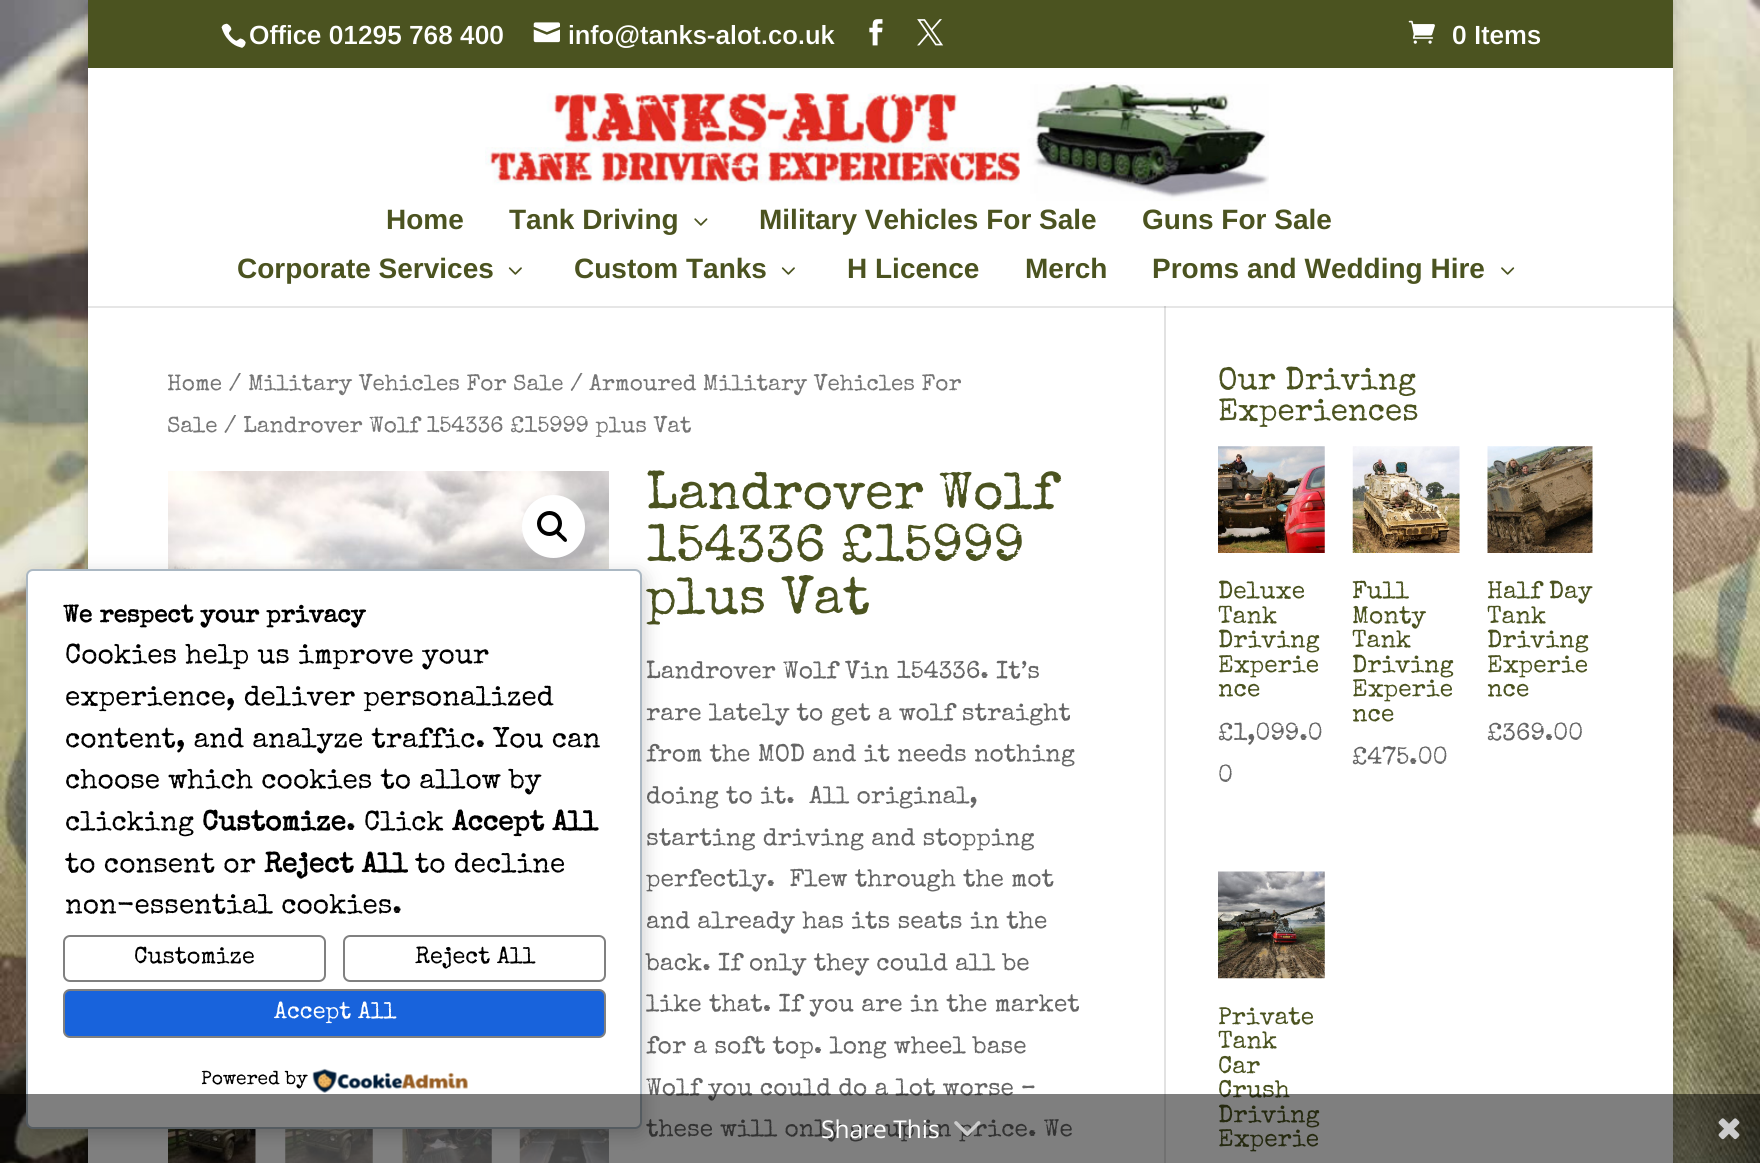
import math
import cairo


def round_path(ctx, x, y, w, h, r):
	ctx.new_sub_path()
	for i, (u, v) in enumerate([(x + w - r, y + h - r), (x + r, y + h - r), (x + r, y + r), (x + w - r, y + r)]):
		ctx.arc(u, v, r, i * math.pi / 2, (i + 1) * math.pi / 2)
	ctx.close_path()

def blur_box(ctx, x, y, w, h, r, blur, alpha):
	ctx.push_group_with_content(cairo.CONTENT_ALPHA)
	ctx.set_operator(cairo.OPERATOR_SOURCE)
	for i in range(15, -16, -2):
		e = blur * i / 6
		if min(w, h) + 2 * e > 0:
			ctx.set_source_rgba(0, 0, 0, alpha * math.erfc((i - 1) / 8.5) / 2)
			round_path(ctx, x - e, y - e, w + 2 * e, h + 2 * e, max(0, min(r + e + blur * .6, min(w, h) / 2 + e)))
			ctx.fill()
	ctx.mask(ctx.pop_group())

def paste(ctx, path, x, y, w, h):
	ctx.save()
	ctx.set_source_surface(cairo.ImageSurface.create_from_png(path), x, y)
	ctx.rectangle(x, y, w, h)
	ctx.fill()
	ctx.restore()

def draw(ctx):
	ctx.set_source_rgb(1, 1, 1)
	ctx.paint()
	paste(ctx, 'media/1.png', 0, 0, 1760, 1163)
	ctx.set_source_rgb(0, 0, 0)
	blur_box(ctx, 88, 0, 1585, 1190, 0, 9, 0.2)
	ctx.set_source_rgb(0.294, 0.325, 0.125)
	ctx.rectangle(88, 0, 1585, 68)
	ctx.fill()
	paste(ctx, 'media/2.png', 221, 23, 25, 25)
	ctx.select_font_face('Arimo SemiBold')
	ctx.set_font_size(26.25)
	ctx.set_source_rgb(1, 1, 1)
	ctx.move_to(249, 44)
	ctx.show_text('Office 01295 768 400')
	paste(ctx, 'media/3.png', 533, 22, 27, 21)
	ctx.move_to(568, 44)
	ctx.show_text('info@tanks-alot.co.uk')
	paste(ctx, 'media/4.png', 869, 19, 14, 27)
	paste(ctx, 'media/5.png', 917, 19, 27, 27)
	paste(ctx, 'media/6.png', 1408, 20, 27, 24)
	ctx.move_to(1452, 44)
	ctx.show_text('0 Items')
	ctx.rectangle(88, 68, 1585, 1095)
	ctx.fill()
	ctx.set_source_rgb(0.886, 0.886, 0.886)
	ctx.rectangle(1164, 306, 2, 857)
	ctx.fill()
	ctx.set_source_rgba(0, 0, 0, 0.1)
	ctx.rectangle(88, 306, 1585, 2)
	ctx.fill()
	paste(ctx, 'media/7.png', 485, 82, 784, 119)
	ctx.select_font_face('Liberation Sans', cairo.FONT_SLANT_NORMAL, cairo.FONT_WEIGHT_BOLD)
	ctx.set_font_size(28)
	ctx.set_source_rgb(0.294, 0.325, 0.125)
	ctx.move_to(386, 229)
	ctx.show_text('Home')
	ctx.move_to(509, 229)
	ctx.show_text('Tank Driving')
	paste(ctx, 'media/8.png', 694, 218, 14, 8)
	for x, y, s in [
		(759, 229, 'Military Vehicles For Sale'),
		(1142, 229, 'Guns For Sale'),
		(237, 278, 'Corporate Services'),
	]:
		ctx.move_to(x, y)
		ctx.show_text(s)
	paste(ctx, 'media/9.png', 508, 267, 14, 8)
	ctx.move_to(574, 278)
	ctx.show_text('Custom Tanks')
	paste(ctx, 'media/9.png', 781, 267, 14, 8)
	for x, y, s in [
		(847, 278, 'H Licence'),
		(1025, 278, 'Merch'),
		(1152, 278, 'Proms and Wedding Hire'),
	]:
		ctx.move_to(x, y)
		ctx.show_text(s)
	paste(ctx, 'media/10.png', 1501, 267, 14, 8)
	ctx.select_font_face('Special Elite')
	ctx.set_font_size(22.55)
	ctx.set_source_rgb(0.463, 0.463, 0.463)
	ctx.move_to(167, 390)
	ctx.show_text('Home / Military Vehicles For Sale / Armoured Military Vehicles For')
	ctx.move_to(167, 432)
	ctx.show_text('Sale / Landrover Wolf 154336 £15999 plus Vat')
	paste(ctx, 'media/11.png', 168, 471, 441, 98)
	ctx.set_source_rgb(1, 1, 1)
	ctx.arc(553.5, 526.5, 31.5, 0, 2 * math.pi)
	ctx.fill()
	ctx.arc(549.5, 523.5, 10.5, 0, 2 * math.pi)
	ctx.set_source_rgb(0, 0, 0)
	ctx.set_line_width(4)
	ctx.stroke()
	ctx.new_path()
	ctx.move_to(556.5, 531.5)
	ctx.curve_to(558.5, 529.5, 561.5, 534, 562.5, 535)
	ctx.curve_to(564, 536, 568.5, 539.5, 566.5, 541.5)
	ctx.curve_to(564.5, 543.5, 561.5, 538.5, 560, 537.5)
	ctx.curve_to(559, 536.5, 554.5, 533.5, 556.5, 531.5)
	ctx.close_path()
	ctx.fill()
	paste(ctx, 'media/12.png', 168, 1129, 88, 34)
	paste(ctx, 'media/13.png', 285, 1129, 88, 34)
	paste(ctx, 'media/14.png', 402, 1129, 90, 34)
	paste(ctx, 'media/15.png', 519, 1129, 90, 34)
	ctx.set_font_size(52.5)
	ctx.set_source_rgb(0.294, 0.325, 0.125)
	for x, y, s in [
		(646, 508, 'Landrover Wolf'),
		(646, 561, '154336 £15999'),
		(646, 613, 'plus Vat'),
	]:
		ctx.move_to(x, y)
		ctx.show_text(s)
	ctx.set_font_size(24.5)
	ctx.set_source_rgb(0.4, 0.4, 0.4)
	for x, y, s in [
		(646, 678, 'Landrover Wolf Vin 154336. It’s'),
		(646, 720, 'rare lately to get a wolf straight'),
		(646, 761, 'from the MOD and it needs nothing'),
		(646, 803, 'doing to it.  All original,'),
		(646, 845, 'starting driving and stopping'),
		(646, 886, 'perfectly.  Flew through the mot'),
		(646, 928, 'and already has its seats in the'),
		(646, 970, 'back. If only they could all be'),
		(646, 1011, 'like that. If you are in the market'),
		(646, 1053, 'for a soft top. long wheel base'),
		(646, 1095, 'Wolf you could do a lot worse –'),
		(646, 1136, 'these will only go up in price. We'),
	]:
		ctx.move_to(x, y)
		ctx.show_text(s)
	ctx.set_font_size(31.5)
	ctx.set_source_rgb(0.294, 0.325, 0.125)
	ctx.move_to(1218, 389)
	ctx.show_text('Our Driving')
	ctx.move_to(1218, 420)
	ctx.show_text('Experiences')
	paste(ctx, 'media/16.png', 1218, 446, 107, 107)
	ctx.set_font_size(24.5)
	for x, y, s in [
		(1218, 598, 'Deluxe'),
		(1218, 623, 'Tank'),
		(1218, 647, 'Driving'),
		(1218, 672, 'Experie'),
		(1218, 696, 'nce'),
	]:
		ctx.move_to(x, y)
		ctx.show_text(s)
	ctx.set_source_rgb(0.4, 0.4, 0.4)
	ctx.move_to(1218, 740)
	ctx.show_text('£1,099.0')
	ctx.move_to(1218, 782)
	ctx.show_text('0')
	paste(ctx, 'media/17.png', 1352, 446, 108, 107)
	ctx.set_source_rgb(0.294, 0.325, 0.125)
	for x, y, s in [
		(1352, 598, 'Full'),
		(1352, 623, 'Monty'),
		(1352, 647, 'Tank'),
		(1352, 672, 'Driving'),
		(1352, 696, 'Experie'),
		(1352, 721, 'nce'),
	]:
		ctx.move_to(x, y)
		ctx.show_text(s)
	ctx.set_source_rgb(0.4, 0.4, 0.4)
	ctx.move_to(1352, 764)
	ctx.show_text('£475.00')
	paste(ctx, 'media/18.png', 1487, 446, 106, 107)
	ctx.set_source_rgb(0.294, 0.325, 0.125)
	for x, y, s in [
		(1487, 598, 'Half Day'),
		(1487, 623, 'Tank'),
		(1487, 647, 'Driving'),
		(1487, 672, 'Experie'),
		(1487, 696, 'nce'),
	]:
		ctx.move_to(x, y)
		ctx.show_text(s)
	ctx.set_source_rgb(0.4, 0.4, 0.4)
	ctx.move_to(1487, 740)
	ctx.show_text('£369.00')
	paste(ctx, 'media/19.png', 1218, 871, 107, 108)
	ctx.set_source_rgb(0.294, 0.325, 0.125)
	for x, y, s in [
		(1218, 1024, 'Private'),
		(1218, 1048, 'Tank'),
		(1218, 1073, 'Car'),
		(1218, 1097, 'Crush'),
		(1218, 1122, 'Driving'),
		(1218, 1146, 'Experie'),
	]:
		ctx.move_to(x, y)
		ctx.show_text(s)
	ctx.set_source_rgb(0, 0, 0)
	blur_box(ctx, 28, 574, 616, 560, 7, 9, 0.2)
	ctx.set_source_rgb(1, 1, 1)
	round_path(ctx, 27, 570, 614, 558, 6)
	ctx.fill_preserve()
	ctx.set_source_rgb(0.671, 0.722, 0.765)
	ctx.set_line_width(2)
	ctx.stroke()
	ctx.select_font_face('Special Elite', cairo.FONT_SLANT_NORMAL, cairo.FONT_WEIGHT_BOLD)
	ctx.set_source_rgb(0, 0, 0)
	ctx.move_to(63, 622)
	ctx.show_text('We respect your privacy')
	ctx.select_font_face('Special Elite')
	ctx.set_font_size(28)
	for x, y, s in [
		(65, 663, 'Cookies help us improve your'),
		(65, 705, 'experience, deliver personalized'),
		(65, 747, 'content, and analyze traffic. You can'),
		(65, 788, 'choose which cookies to allow by'),
		(65, 830, 'clicking'),
	]:
		ctx.move_to(x, y)
		ctx.show_text(s)
	ctx.select_font_face('Special Elite', cairo.FONT_SLANT_NORMAL, cairo.FONT_WEIGHT_BOLD)
	ctx.move_to(202, 830)
	ctx.show_text('Customize')
	ctx.select_font_face('Special Elite')
	ctx.move_to(346, 830)
	ctx.show_text('. Click')
	ctx.select_font_face('Special Elite', cairo.FONT_SLANT_NORMAL, cairo.FONT_WEIGHT_BOLD)
	ctx.move_to(452, 830)
	ctx.show_text('Accept All')
	ctx.select_font_face('Special Elite')
	ctx.move_to(65, 872)
	ctx.show_text('to consent or')
	ctx.select_font_face('Special Elite', cairo.FONT_SLANT_NORMAL, cairo.FONT_WEIGHT_BOLD)
	ctx.move_to(264, 872)
	ctx.show_text('Reject All')
	ctx.select_font_face('Special Elite')
	ctx.move_to(415, 872)
	ctx.show_text('to decline')
	ctx.move_to(65, 913)
	ctx.show_text('non-essential cookies.')
	round_path(ctx, 64, 936, 261, 45, 6)
	ctx.set_source_rgb(0.502, 0.502, 0.502)
	ctx.stroke()
	ctx.set_font_size(23.5)
	ctx.set_source_rgb(0, 0, 0)
	ctx.move_to(134, 963)
	ctx.show_text('Customize')
	round_path(ctx, 344, 936, 261, 45, 6)
	ctx.set_source_rgb(0.502, 0.502, 0.502)
	ctx.stroke()
	ctx.set_source_rgb(0, 0, 0)
	ctx.move_to(415, 963)
	ctx.show_text('Reject All')
	ctx.set_source_rgb(0.094, 0.388, 0.863)
	round_path(ctx, 64, 990, 541, 47, 6)
	ctx.fill_preserve()
	ctx.set_source_rgb(0.502, 0.502, 0.502)
	ctx.stroke()
	ctx.set_source_rgb(1, 1, 1)
	ctx.move_to(274, 1018)
	ctx.show_text('Accept All')
	ctx.set_font_size(19.25)
	ctx.set_source_rgb(0, 0, 0)
	ctx.move_to(201, 1084)
	ctx.show_text('Powered by')
	paste(ctx, 'media/20.png', 312, 1068, 156, 25)
	ctx.set_source_rgba(0, 0, 0, 0.5)
	ctx.rectangle(0, 1094, 1760, 69)
	ctx.fill()
	ctx.select_font_face('Open Sans')
	ctx.set_font_size(24.5)
	ctx.set_source_rgb(1, 1, 1)
	ctx.move_to(821, 1138)
	ctx.show_text('Share This')
	paste(ctx, 'media/21.png', 954, 1121, 27, 15)
	paste(ctx, 'media/22.png', 1718, 1118, 22, 22)


surface = cairo.ImageSurface(cairo.FORMAT_RGB24, 1760, 1163)
ctx = cairo.Context(surface)
options = cairo.FontOptions()
options.set_hint_metrics(cairo.HINT_METRICS_OFF)
options.set_hint_style(cairo.HINT_STYLE_NONE)
ctx.set_font_options(options)
ctx.set_miter_limit(4)
draw(ctx)
surface.write_to_png('image.png')
